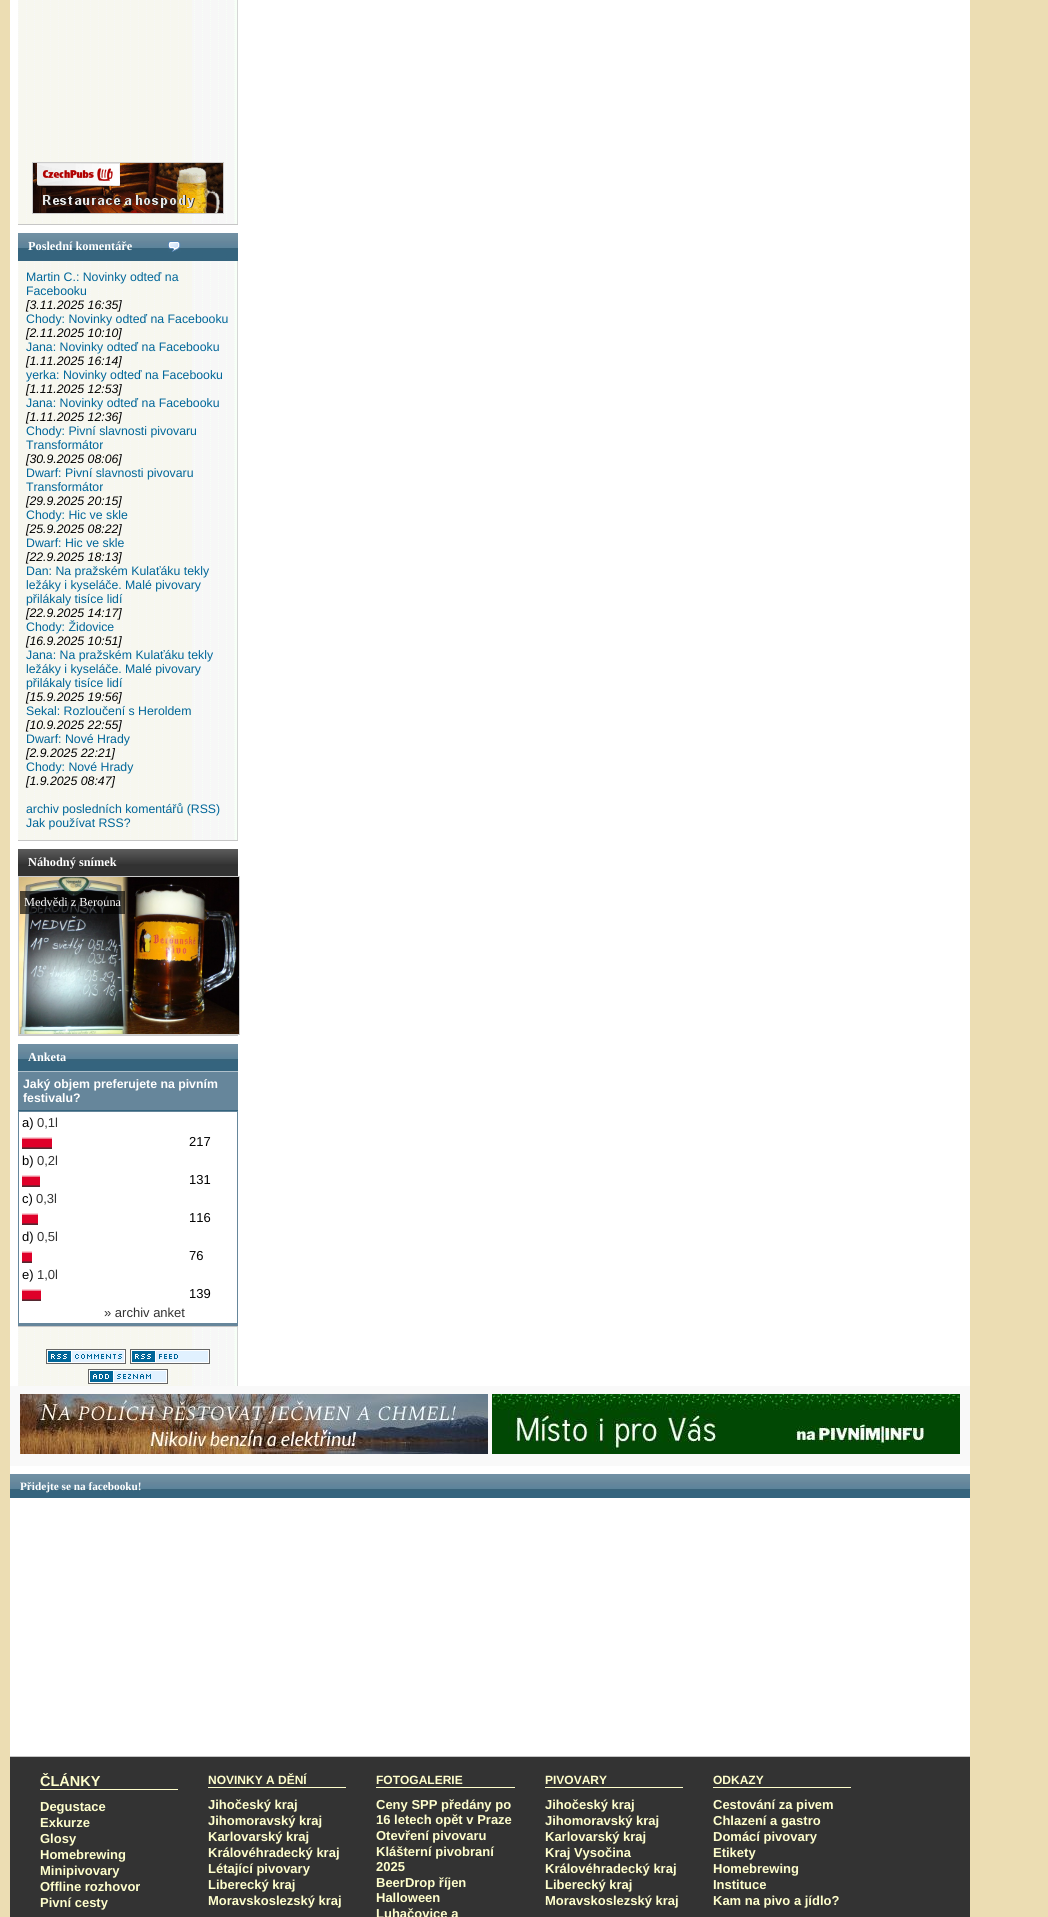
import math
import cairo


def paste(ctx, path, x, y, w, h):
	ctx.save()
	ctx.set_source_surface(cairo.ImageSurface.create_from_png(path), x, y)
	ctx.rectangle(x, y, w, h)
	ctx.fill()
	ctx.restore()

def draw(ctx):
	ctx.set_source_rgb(0.925, 0.867, 0.702)
	ctx.paint()
	ctx.set_source_rgb(1, 1, 1)
	ctx.rectangle(10, 0, 960, 1386)
	ctx.fill()
	paste(ctx, 'media/1.png', 18, 0, 220, 1386)
	ctx.set_source_rgb(0.776, 0.776, 0.776)
	ctx.rectangle(18, 224, 220, 1)
	ctx.fill()
	ctx.rectangle(32.5, 162.5, 191, 51)
	ctx.set_source_rgb(0.8, 0.8, 0.8)
	ctx.set_line_width(1)
	ctx.stroke()
	paste(ctx, 'media/2.png', 33, 163, 190, 50)
	paste(ctx, 'media/3.png', 18, 233, 220, 28)
	ctx.set_source_rgb(1, 1, 1)
	ctx.rectangle(18, 225, 220, 8)
	ctx.fill()
	ctx.set_source_rgb(0.776, 0.776, 0.776)
	ctx.rectangle(18, 840, 220, 1)
	ctx.fill()
	paste(ctx, 'media/4.png', 168, 241, 13, 11)
	ctx.select_font_face('Liberation Serif', cairo.FONT_SLANT_NORMAL, cairo.FONT_WEIGHT_BOLD)
	ctx.set_font_size(12.3)
	ctx.set_source_rgb(1, 1, 1)
	ctx.move_to(28, 250)
	ctx.show_text('Poslední komentáře')
	ctx.select_font_face('Liberation Sans')
	ctx.set_source_rgb(0, 0.4, 0.6)
	ctx.move_to(26, 281)
	ctx.show_text('Martin C.: Novinky odteď na')
	ctx.move_to(26, 295)
	ctx.show_text('Facebooku')
	ctx.select_font_face('Liberation Sans', cairo.FONT_SLANT_ITALIC)
	ctx.set_source_rgb(0, 0, 0)
	ctx.move_to(26, 309)
	ctx.show_text('[3.11.2025 16:35]')
	ctx.select_font_face('Liberation Sans')
	ctx.set_source_rgb(0, 0.4, 0.6)
	ctx.move_to(26, 323)
	ctx.show_text('Chody: Novinky odteď na Facebooku')
	ctx.select_font_face('Liberation Sans', cairo.FONT_SLANT_ITALIC)
	ctx.set_source_rgb(0, 0, 0)
	ctx.move_to(26, 337)
	ctx.show_text('[2.11.2025 10:10]')
	ctx.select_font_face('Liberation Sans')
	ctx.set_source_rgb(0, 0.4, 0.6)
	ctx.move_to(26, 351)
	ctx.show_text('Jana: Novinky odteď na Facebooku')
	ctx.select_font_face('Liberation Sans', cairo.FONT_SLANT_ITALIC)
	ctx.set_source_rgb(0, 0, 0)
	ctx.move_to(26, 365)
	ctx.show_text('[1.11.2025 16:14]')
	ctx.select_font_face('Liberation Sans')
	ctx.set_source_rgb(0, 0.4, 0.6)
	ctx.move_to(26, 379)
	ctx.show_text('yerka: Novinky odteď na Facebooku')
	ctx.select_font_face('Liberation Sans', cairo.FONT_SLANT_ITALIC)
	ctx.set_source_rgb(0, 0, 0)
	ctx.move_to(26, 393)
	ctx.show_text('[1.11.2025 12:53]')
	ctx.select_font_face('Liberation Sans')
	ctx.set_source_rgb(0, 0.4, 0.6)
	ctx.move_to(26, 407)
	ctx.show_text('Jana: Novinky odteď na Facebooku')
	ctx.select_font_face('Liberation Sans', cairo.FONT_SLANT_ITALIC)
	ctx.set_source_rgb(0, 0, 0)
	ctx.move_to(26, 421)
	ctx.show_text('[1.11.2025 12:36]')
	ctx.select_font_face('Liberation Sans')
	ctx.set_source_rgb(0, 0.4, 0.6)
	ctx.move_to(26, 435)
	ctx.show_text('Chody: Pivní slavnosti pivovaru')
	ctx.move_to(26, 449)
	ctx.show_text('Transformátor')
	ctx.select_font_face('Liberation Sans', cairo.FONT_SLANT_ITALIC)
	ctx.set_source_rgb(0, 0, 0)
	ctx.move_to(26, 463)
	ctx.show_text('[30.9.2025 08:06]')
	ctx.select_font_face('Liberation Sans')
	ctx.set_source_rgb(0, 0.4, 0.6)
	ctx.move_to(26, 477)
	ctx.show_text('Dwarf: Pivní slavnosti pivovaru')
	ctx.move_to(26, 491)
	ctx.show_text('Transformátor')
	ctx.select_font_face('Liberation Sans', cairo.FONT_SLANT_ITALIC)
	ctx.set_source_rgb(0, 0, 0)
	ctx.move_to(26, 505)
	ctx.show_text('[29.9.2025 20:15]')
	ctx.select_font_face('Liberation Sans')
	ctx.set_source_rgb(0, 0.4, 0.6)
	ctx.move_to(26, 519)
	ctx.show_text('Chody: Hic ve skle')
	ctx.select_font_face('Liberation Sans', cairo.FONT_SLANT_ITALIC)
	ctx.set_source_rgb(0, 0, 0)
	ctx.move_to(26, 533)
	ctx.show_text('[25.9.2025 08:22]')
	ctx.select_font_face('Liberation Sans')
	ctx.set_source_rgb(0, 0.4, 0.6)
	ctx.move_to(26, 547)
	ctx.show_text('Dwarf: Hic ve skle')
	ctx.select_font_face('Liberation Sans', cairo.FONT_SLANT_ITALIC)
	ctx.set_source_rgb(0, 0, 0)
	ctx.move_to(26, 561)
	ctx.show_text('[22.9.2025 18:13]')
	ctx.select_font_face('Liberation Sans')
	ctx.set_source_rgb(0, 0.4, 0.6)
	for x, y, s in [
		(26, 575, 'Dan: Na pražském Kulaťáku tekly'),
		(26, 589, 'ležáky i kyseláče. Malé pivovary'),
		(26, 603, 'přilákaly tisíce lidí'),
	]:
		ctx.move_to(x, y)
		ctx.show_text(s)
	ctx.select_font_face('Liberation Sans', cairo.FONT_SLANT_ITALIC)
	ctx.set_source_rgb(0, 0, 0)
	ctx.move_to(26, 617)
	ctx.show_text('[22.9.2025 14:17]')
	ctx.select_font_face('Liberation Sans')
	ctx.set_source_rgb(0, 0.4, 0.6)
	ctx.move_to(26, 631)
	ctx.show_text('Chody: Židovice')
	ctx.select_font_face('Liberation Sans', cairo.FONT_SLANT_ITALIC)
	ctx.set_source_rgb(0, 0, 0)
	ctx.move_to(26, 645)
	ctx.show_text('[16.9.2025 10:51]')
	ctx.select_font_face('Liberation Sans')
	ctx.set_source_rgb(0, 0.4, 0.6)
	for x, y, s in [
		(26, 659, 'Jana: Na pražském Kulaťáku tekly'),
		(26, 673, 'ležáky i kyseláče. Malé pivovary'),
		(26, 687, 'přilákaly tisíce lidí'),
	]:
		ctx.move_to(x, y)
		ctx.show_text(s)
	ctx.select_font_face('Liberation Sans', cairo.FONT_SLANT_ITALIC)
	ctx.set_source_rgb(0, 0, 0)
	ctx.move_to(26, 701)
	ctx.show_text('[15.9.2025 19:56]')
	ctx.select_font_face('Liberation Sans')
	ctx.set_source_rgb(0, 0.4, 0.6)
	ctx.move_to(26, 715)
	ctx.show_text('Sekal: Rozloučení s Heroldem')
	ctx.select_font_face('Liberation Sans', cairo.FONT_SLANT_ITALIC)
	ctx.set_source_rgb(0, 0, 0)
	ctx.move_to(26, 729)
	ctx.show_text('[10.9.2025 22:55]')
	ctx.select_font_face('Liberation Sans')
	ctx.set_source_rgb(0, 0.4, 0.6)
	ctx.move_to(26, 743)
	ctx.show_text('Dwarf: Nové Hrady')
	ctx.select_font_face('Liberation Sans', cairo.FONT_SLANT_ITALIC)
	ctx.set_source_rgb(0, 0, 0)
	ctx.move_to(26, 757)
	ctx.show_text('[2.9.2025 22:21]')
	ctx.select_font_face('Liberation Sans')
	ctx.set_source_rgb(0, 0.4, 0.6)
	ctx.move_to(26, 771)
	ctx.show_text('Chody: Nové Hrady')
	ctx.select_font_face('Liberation Sans', cairo.FONT_SLANT_ITALIC)
	ctx.set_source_rgb(0, 0, 0)
	ctx.move_to(26, 785)
	ctx.show_text('[1.9.2025 08:47]')
	ctx.select_font_face('Liberation Sans')
	ctx.set_source_rgb(0, 0.4, 0.6)
	ctx.move_to(26, 813)
	ctx.show_text('archiv posledních komentářů (RSS)')
	ctx.move_to(26, 827)
	ctx.show_text('Jak používat RSS?')
	paste(ctx, 'media/5.png', 18, 849, 220, 27)
	ctx.set_source_rgb(1, 1, 1)
	ctx.rectangle(18, 841, 220, 8)
	ctx.fill()
	ctx.set_source_rgb(0.776, 0.776, 0.776)
	ctx.rectangle(18, 1035, 220, 1)
	ctx.fill()
	ctx.select_font_face('Liberation Serif', cairo.FONT_SLANT_NORMAL, cairo.FONT_WEIGHT_BOLD)
	ctx.set_source_rgb(1, 1, 1)
	ctx.move_to(28, 866)
	ctx.show_text('Náhodný snímek')
	ctx.rectangle(18.5, 876.5, 221, 158)
	ctx.set_source_rgb(0.8, 0.8, 0.8)
	ctx.stroke()
	paste(ctx, 'media/6.png', 19, 877, 220, 157)
	ctx.set_source_rgba(0, 0, 0, 0.65)
	ctx.rectangle(20, 891, 105, 23)
	ctx.fill()
	ctx.select_font_face('Liberation Serif')
	ctx.set_source_rgb(1, 1, 1)
	ctx.move_to(24, 906)
	ctx.show_text('Medvědi z Berouna')
	paste(ctx, 'media/7.png', 18, 1044, 220, 27)
	ctx.rectangle(18, 1036, 220, 8)
	ctx.fill()
	ctx.set_source_rgb(0.776, 0.776, 0.776)
	ctx.rectangle(18, 1326, 220, 1)
	ctx.fill()
	ctx.select_font_face('Liberation Serif', cairo.FONT_SLANT_NORMAL, cairo.FONT_WEIGHT_BOLD)
	ctx.set_source_rgb(1, 1, 1)
	ctx.move_to(28, 1061)
	ctx.show_text('Anketa')
	ctx.set_source_rgb(0.4, 0.525, 0.608)
	ctx.rectangle(18, 1072, 220, 38)
	ctx.fill()
	ctx.set_source_rgb(0.69, 0.757, 0.8)
	ctx.rectangle(18, 1071, 220, 1)
	ctx.fill()
	ctx.set_source_rgb(0.208, 0.392, 0.494)
	ctx.rectangle(18, 1110, 220, 1)
	ctx.fill()
	ctx.select_font_face('Liberation Sans', cairo.FONT_SLANT_NORMAL, cairo.FONT_WEIGHT_BOLD)
	ctx.set_source_rgb(1, 1, 1)
	ctx.move_to(23, 1088)
	ctx.show_text('Jaký objem preferujete na pivním')
	ctx.move_to(23, 1102)
	ctx.show_text('festivalu?')
	ctx.rectangle(19, 1112, 218, 211)
	ctx.fill()
	ctx.set_source_rgb(0.4, 0.525, 0.608)
	ctx.rectangle(18, 1111, 220, 1)
	ctx.rectangle(237, 1111, 1, 215)
	ctx.rectangle(18, 1323, 220, 3)
	ctx.rectangle(18, 1111, 1, 215)
	ctx.fill()
	ctx.select_font_face('Liberation Sans')
	ctx.set_font_size(13)
	ctx.set_source_rgb(0, 0, 0)
	ctx.move_to(22, 1127)
	ctx.show_text('a)')
	ctx.set_source_rgb(0.196, 0.196, 0.196)
	ctx.move_to(37, 1127)
	ctx.show_text('0,1l')
	paste(ctx, 'media/8.png', 22, 1137, 30, 12)
	ctx.set_source_rgb(0, 0, 0)
	ctx.move_to(189, 1146)
	ctx.show_text('217')
	ctx.move_to(22, 1165)
	ctx.show_text('b)')
	ctx.set_source_rgb(0.196, 0.196, 0.196)
	ctx.move_to(37, 1165)
	ctx.show_text('0,2l')
	paste(ctx, 'media/9.png', 22, 1175, 18, 12)
	ctx.set_source_rgb(0, 0, 0)
	ctx.move_to(189, 1184)
	ctx.show_text('131')
	ctx.move_to(22, 1203)
	ctx.show_text('c)')
	ctx.set_source_rgb(0.196, 0.196, 0.196)
	ctx.move_to(36, 1203)
	ctx.show_text('0,3l')
	paste(ctx, 'media/10.png', 22, 1213, 16, 12)
	ctx.set_source_rgb(0, 0, 0)
	ctx.move_to(189, 1222)
	ctx.show_text('116')
	ctx.move_to(22, 1241)
	ctx.show_text('d)')
	ctx.set_source_rgb(0.196, 0.196, 0.196)
	ctx.move_to(37, 1241)
	ctx.show_text('0,5l')
	paste(ctx, 'media/11.png', 22, 1251, 10, 12)
	ctx.set_source_rgb(0, 0, 0)
	ctx.move_to(189, 1260)
	ctx.show_text('76')
	ctx.move_to(22, 1279)
	ctx.show_text('e)')
	ctx.set_source_rgb(0.196, 0.196, 0.196)
	ctx.move_to(37, 1279)
	ctx.show_text('1,0l')
	paste(ctx, 'media/12.png', 22, 1289, 19, 12)
	ctx.set_source_rgb(0, 0, 0)
	ctx.move_to(189, 1298)
	ctx.show_text('139')
	ctx.set_source_rgb(0.196, 0.196, 0.196)
	ctx.move_to(104, 1317)
	ctx.show_text('» archiv anket')
	paste(ctx, 'media/13.png', 46, 1349, 80, 15)
	paste(ctx, 'media/14.png', 130, 1349, 80, 15)
	paste(ctx, 'media/15.png', 88, 1369, 80, 15)
	ctx.set_source_rgb(0.976, 0.976, 0.976)
	ctx.rectangle(10, 1386, 960, 80)
	ctx.fill()
	paste(ctx, 'media/16.png', 20, 1394, 468, 60)
	paste(ctx, 'media/17.png', 492, 1394, 468, 60)
	paste(ctx, 'media/18.png', 10, 1474, 960, 24)
	ctx.set_source_rgb(1, 1, 1)
	ctx.rectangle(10, 1466, 960, 8)
	ctx.fill()
	ctx.set_source_rgb(0.776, 0.776, 0.776)
	ctx.rectangle(10, 1756, 960, 1)
	ctx.fill()
	ctx.select_font_face('Liberation Serif', cairo.FONT_SLANT_NORMAL, cairo.FONT_WEIGHT_BOLD)
	ctx.set_font_size(11.25)
	ctx.set_source_rgb(1, 1, 1)
	ctx.move_to(20, 1490)
	ctx.show_text('Přidejte se na facebooku!')
	ctx.rectangle(10, 1498, 960, 258)
	ctx.fill()
	ctx.set_source_rgb(0.2, 0.2, 0.2)
	ctx.rectangle(10, 1757, 960, 160)
	ctx.fill()
	ctx.set_source_rgb(1, 1, 0.8)
	ctx.rectangle(40, 1789, 138, 1)
	ctx.fill()
	ctx.select_font_face('Liberation Sans', cairo.FONT_SLANT_NORMAL, cairo.FONT_WEIGHT_BOLD)
	ctx.set_font_size(14.5)
	ctx.move_to(40, 1786)
	ctx.show_text('ČLÁNKY')
	ctx.set_font_size(13)
	for x, y, s in [
		(40, 1811, 'Degustace'),
		(40, 1827, 'Exkurze'),
		(40, 1843, 'Glosy'),
		(40, 1859, 'Homebrewing'),
		(40, 1875, 'Minipivovary'),
		(40, 1891, 'Offline rozhovor'),
		(40, 1907, 'Pivní cesty'),
	]:
		ctx.move_to(x, y)
		ctx.show_text(s)
	ctx.rectangle(208, 1787, 138, 1)
	ctx.fill()
	ctx.set_font_size(12)
	ctx.move_to(208, 1784)
	ctx.show_text('NOVINKY A DĚNÍ')
	ctx.set_font_size(13)
	for x, y, s in [
		(208, 1809, 'Jihočeský kraj'),
		(208, 1825, 'Jihomoravský kraj'),
		(208, 1841, 'Karlovarský kraj'),
		(208, 1857, 'Královéhradecký kraj'),
		(208, 1873, 'Létající pivovary'),
		(208, 1889, 'Liberecký kraj'),
		(208, 1905, 'Moravskoslezský kraj'),
	]:
		ctx.move_to(x, y)
		ctx.show_text(s)
	ctx.rectangle(376, 1787, 139, 1)
	ctx.fill()
	ctx.set_font_size(12)
	ctx.move_to(376, 1784)
	ctx.show_text('FOTOGALERIE')
	ctx.set_font_size(13)
	for x, y, s in [
		(376, 1809, 'Ceny SPP předány po'),
		(376, 1824, '16 letech opět v Praze'),
		(376, 1840, 'Otevření pivovaru'),
		(376, 1856, 'Klášterní pivobraní'),
		(376, 1871, '2025'),
		(376, 1887, 'BeerDrop říjen'),
		(376, 1902, 'Halloween'),
		(376, 1918, 'Luhačovice a'),
	]:
		ctx.move_to(x, y)
		ctx.show_text(s)
	ctx.rectangle(545, 1787, 138, 1)
	ctx.fill()
	ctx.set_font_size(12)
	ctx.move_to(545, 1784)
	ctx.show_text('PIVOVARY')
	ctx.set_font_size(13)
	for x, y, s in [
		(545, 1809, 'Jihočeský kraj'),
		(545, 1825, 'Jihomoravský kraj'),
		(545, 1841, 'Karlovarský kraj'),
		(545, 1857, 'Kraj Vysočina'),
		(545, 1873, 'Královéhradecký kraj'),
		(545, 1889, 'Liberecký kraj'),
		(545, 1905, 'Moravskoslezský kraj'),
	]:
		ctx.move_to(x, y)
		ctx.show_text(s)
	ctx.rectangle(713, 1787, 138, 1)
	ctx.fill()
	ctx.set_font_size(12)
	ctx.move_to(713, 1784)
	ctx.show_text('ODKAZY')
	ctx.set_font_size(13)
	for x, y, s in [
		(713, 1809, 'Cestování za pivem'),
		(713, 1825, 'Chlazení a gastro'),
		(713, 1841, 'Domácí pivovary'),
		(713, 1857, 'Etikety'),
		(713, 1873, 'Homebrewing'),
		(713, 1889, 'Instituce'),
		(713, 1905, 'Kam na pivo a jídlo?'),
	]:
		ctx.move_to(x, y)
		ctx.show_text(s)


surface = cairo.ImageSurface(cairo.FORMAT_RGB24, 1048, 1917)
ctx = cairo.Context(surface)
options = cairo.FontOptions()
options.set_hint_metrics(cairo.HINT_METRICS_OFF)
options.set_hint_style(cairo.HINT_STYLE_NONE)
ctx.set_font_options(options)
ctx.set_miter_limit(4)
draw(ctx)
surface.write_to_png('image.png')
